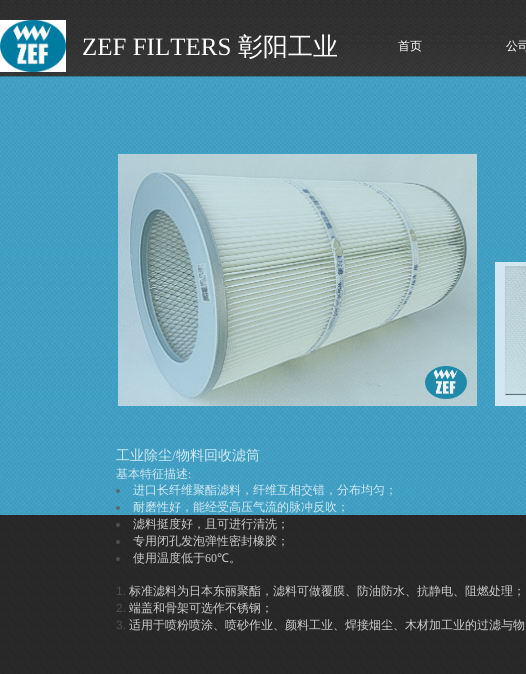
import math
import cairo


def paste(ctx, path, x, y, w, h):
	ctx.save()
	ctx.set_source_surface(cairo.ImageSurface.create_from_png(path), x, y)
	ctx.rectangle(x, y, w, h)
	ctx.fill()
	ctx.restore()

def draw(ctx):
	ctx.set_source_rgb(1, 1, 1)
	ctx.paint()
	paste(ctx, 'media/1.png', 0, 0, 526, 515)
	paste(ctx, 'media/2.png', 0, 20, 66, 52)
	ctx.select_font_face('Liberation Serif')
	ctx.set_font_size(25)
	ctx.set_source_rgb(1, 1, 1)
	ctx.move_to(82, 55)
	ctx.show_text('ZEF FILTERS')
	ctx.select_font_face('WenQuanYi Zen Hei Medium')
	ctx.move_to(238, 55)
	ctx.show_text('彰阳工业')
	ctx.set_font_size(12)
	ctx.move_to(398, 50)
	ctx.show_text('首页')
	ctx.move_to(506, 50)
	ctx.show_text('公司')
	paste(ctx, 'media/3.png', 118, 154, 359, 252)
	paste(ctx, 'media/4.png', 495, 262, 31, 144)
	paste(ctx, 'media/5.png', 425, 366, 42, 33)
	ctx.set_font_size(14)
	ctx.set_source_rgb(0.824, 0.91, 0.945)
	ctx.move_to(116, 460)
	ctx.show_text('工业除尘')
	ctx.select_font_face('Liberation Serif')
	ctx.move_to(172, 460)
	ctx.show_text('/')
	ctx.select_font_face('WenQuanYi Zen Hei Medium')
	ctx.move_to(176, 460)
	ctx.show_text('物料回收滤筒')
	ctx.set_font_size(12)
	ctx.move_to(116, 478)
	ctx.show_text('基本特征描述')
	ctx.select_font_face('Liberation Serif')
	ctx.move_to(188, 478)
	ctx.show_text(':')
	ctx.set_source_rgba(0.353, 0.353, 0.353, 0.76)
	ctx.new_path()
	ctx.arc(118, 491, 2, 0, 2 * math.pi)
	ctx.fill()
	ctx.select_font_face('WenQuanYi Zen Hei Medium')
	ctx.set_source_rgb(0.824, 0.91, 0.945)
	ctx.move_to(133, 494)
	ctx.show_text('进口长纤维聚酯滤料，纤维互相交错，分布均匀；')
	ctx.set_source_rgba(0.353, 0.353, 0.353, 0.76)
	ctx.new_path()
	ctx.arc(118, 508, 2, 0, 2 * math.pi)
	ctx.fill()
	ctx.set_source_rgb(0.824, 0.91, 0.945)
	ctx.move_to(133, 511)
	ctx.show_text('耐磨性好，能经受高压气流的脉冲反吹；')
	paste(ctx, 'media/6.png', 0, 515, 526, 159)
	ctx.set_source_rgba(0.353, 0.353, 0.353, 0.76)
	ctx.arc(118, 525, 2, 0, 2 * math.pi)
	ctx.fill()
	ctx.set_source_rgb(0.8, 0.8, 0.8)
	ctx.move_to(133, 528)
	ctx.show_text('滤料挺度好，且可进行清洗；')
	ctx.set_source_rgba(0.353, 0.353, 0.353, 0.76)
	ctx.new_path()
	ctx.arc(118, 542, 2, 0, 2 * math.pi)
	ctx.fill()
	ctx.set_source_rgb(0.8, 0.8, 0.8)
	ctx.move_to(133, 545)
	ctx.show_text('专用闭孔发泡弹性密封橡胶；')
	ctx.set_source_rgba(0.353, 0.353, 0.353, 0.76)
	ctx.new_path()
	ctx.arc(118, 559, 2, 0, 2 * math.pi)
	ctx.fill()
	ctx.set_source_rgb(0.8, 0.8, 0.8)
	ctx.move_to(133, 562)
	ctx.show_text('使用温度低于')
	ctx.select_font_face('Liberation Serif')
	ctx.move_to(205, 562)
	ctx.show_text('60')
	ctx.select_font_face('Noto Sans')
	ctx.move_to(217, 562)
	ctx.show_text('℃')
	ctx.select_font_face('WenQuanYi Zen Hei Medium')
	ctx.move_to(229, 562)
	ctx.show_text('。')
	ctx.select_font_face('Liberation Sans')
	ctx.set_source_rgb(0.306, 0.306, 0.306)
	ctx.move_to(116, 595)
	ctx.show_text('1.')
	ctx.select_font_face('WenQuanYi Zen Hei Medium')
	ctx.set_source_rgb(0.8, 0.8, 0.8)
	ctx.move_to(129, 595)
	ctx.show_text('标准滤料为日本东丽聚酯，滤料可做覆膜、防油防水、抗静电、阻燃处理；')
	ctx.select_font_face('Liberation Sans')
	ctx.set_source_rgb(0.306, 0.306, 0.306)
	ctx.move_to(116, 612)
	ctx.show_text('2.')
	ctx.select_font_face('WenQuanYi Zen Hei Medium')
	ctx.set_source_rgb(0.8, 0.8, 0.8)
	ctx.move_to(129, 612)
	ctx.show_text('端盖和骨架可选作不锈钢；')
	ctx.select_font_face('Liberation Sans')
	ctx.set_source_rgb(0.306, 0.306, 0.306)
	ctx.move_to(116, 629)
	ctx.show_text('3.')
	ctx.select_font_face('WenQuanYi Zen Hei Medium')
	ctx.set_source_rgb(0.8, 0.8, 0.8)
	ctx.move_to(129, 629)
	ctx.show_text('适用于喷粉喷涂、喷砂作业、颜料工业、焊接烟尘、木材加工业的过滤与物')


surface = cairo.ImageSurface(cairo.FORMAT_RGB24, 526, 674)
ctx = cairo.Context(surface)
options = cairo.FontOptions()
options.set_hint_metrics(cairo.HINT_METRICS_OFF)
options.set_hint_style(cairo.HINT_STYLE_NONE)
ctx.set_font_options(options)
ctx.set_miter_limit(4)
draw(ctx)
surface.write_to_png('image.png')
